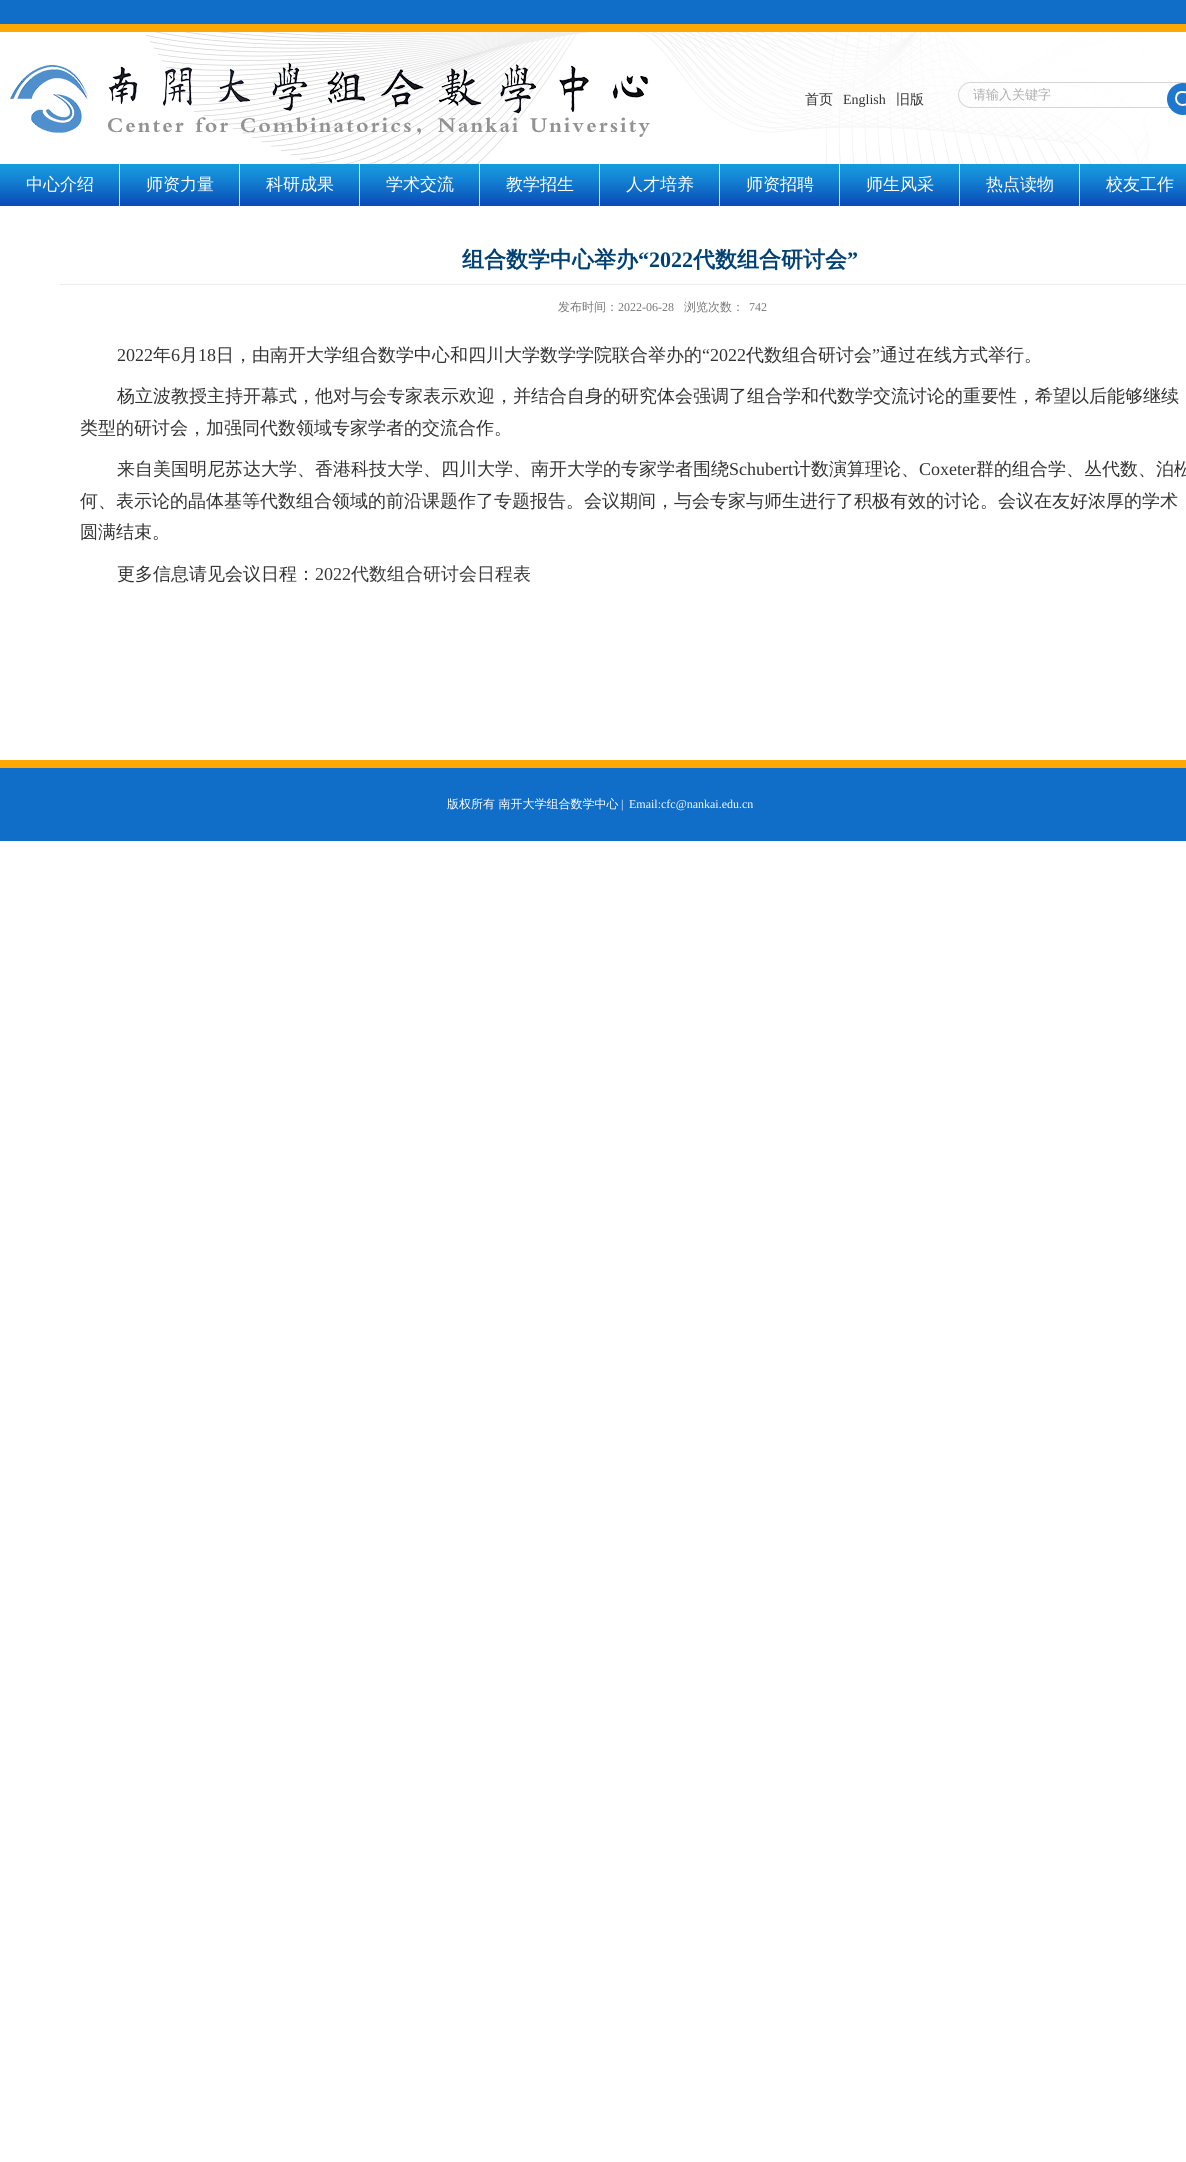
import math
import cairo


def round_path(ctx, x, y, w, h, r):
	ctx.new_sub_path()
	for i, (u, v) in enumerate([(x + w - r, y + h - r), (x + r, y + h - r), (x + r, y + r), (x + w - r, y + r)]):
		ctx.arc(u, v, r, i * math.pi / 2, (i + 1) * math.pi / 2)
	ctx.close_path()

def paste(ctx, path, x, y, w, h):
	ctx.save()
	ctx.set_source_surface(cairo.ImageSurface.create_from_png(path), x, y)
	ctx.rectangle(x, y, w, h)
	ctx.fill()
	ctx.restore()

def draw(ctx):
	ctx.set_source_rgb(1, 1, 1)
	ctx.paint()
	ctx.set_source_rgb(0.063, 0.427, 0.784)
	ctx.rectangle(0, 0, 1186, 24)
	ctx.fill()
	ctx.set_source_rgb(0.996, 0.659, 0.024)
	ctx.rectangle(0, 24, 1186, 8)
	ctx.fill()
	paste(ctx, 'media/1.png', 146, 32, 1005, 132)
	paste(ctx, 'media/2.png', 813, 105, 65, 10)
	paste(ctx, 'media/3.png', 10, 62, 640, 75)
	ctx.select_font_face('WenQuanYi Zen Hei Medium')
	ctx.set_font_size(14)
	ctx.set_source_rgb(0.2, 0.2, 0.2)
	ctx.move_to(805, 104)
	ctx.show_text('首页')
	ctx.select_font_face('Liberation Serif')
	ctx.move_to(843, 104)
	ctx.show_text('English')
	ctx.select_font_face('WenQuanYi Zen Hei Medium')
	ctx.move_to(896, 104)
	ctx.show_text('旧版')
	round_path(ctx, 958.5, 82.5, 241, 25, 12.5)
	ctx.set_source_rgb(0.835, 0.835, 0.835)
	ctx.set_line_width(1)
	ctx.stroke()
	ctx.set_font_size(13)
	ctx.set_source_rgb(0.678, 0.678, 0.678)
	ctx.move_to(973, 99)
	ctx.show_text('请输入关键字')
	ctx.set_source_rgb(0.122, 0.471, 0.808)
	ctx.new_path()
	ctx.arc(1183, 99, 16, 0, 2 * math.pi)
	ctx.fill()
	paste(ctx, 'media/4.png', 1175, 91, 11, 16)
	paste(ctx, 'media/5.png', 0, 164, 1186, 42)
	ctx.set_source_rgba(1, 1, 1, 0.8)
	ctx.rectangle(119, 164, 1, 42)
	ctx.fill()
	ctx.set_font_size(17)
	ctx.set_source_rgb(1, 1, 1)
	ctx.move_to(26, 190)
	ctx.show_text('中心介绍')
	ctx.set_source_rgba(1, 1, 1, 0.8)
	ctx.rectangle(239, 164, 1, 42)
	ctx.fill()
	ctx.set_source_rgb(1, 1, 1)
	ctx.move_to(146, 190)
	ctx.show_text('师资力量')
	ctx.set_source_rgba(1, 1, 1, 0.8)
	ctx.rectangle(359, 164, 1, 42)
	ctx.fill()
	ctx.set_source_rgb(1, 1, 1)
	ctx.move_to(266, 190)
	ctx.show_text('科研成果')
	ctx.set_source_rgba(1, 1, 1, 0.8)
	ctx.rectangle(479, 164, 1, 42)
	ctx.fill()
	ctx.set_source_rgb(1, 1, 1)
	ctx.move_to(386, 190)
	ctx.show_text('学术交流')
	ctx.set_source_rgba(1, 1, 1, 0.8)
	ctx.rectangle(599, 164, 1, 42)
	ctx.fill()
	ctx.set_source_rgb(1, 1, 1)
	ctx.move_to(506, 190)
	ctx.show_text('教学招生')
	ctx.set_source_rgba(1, 1, 1, 0.8)
	ctx.rectangle(719, 164, 1, 42)
	ctx.fill()
	ctx.set_source_rgb(1, 1, 1)
	ctx.move_to(626, 190)
	ctx.show_text('人才培养')
	ctx.set_source_rgba(1, 1, 1, 0.8)
	ctx.rectangle(839, 164, 1, 42)
	ctx.fill()
	ctx.set_source_rgb(1, 1, 1)
	ctx.move_to(746, 190)
	ctx.show_text('师资招聘')
	ctx.set_source_rgba(1, 1, 1, 0.8)
	ctx.rectangle(959, 164, 1, 42)
	ctx.fill()
	ctx.set_source_rgb(1, 1, 1)
	ctx.move_to(866, 190)
	ctx.show_text('师生风采')
	ctx.set_source_rgba(1, 1, 1, 0.8)
	ctx.rectangle(1079, 164, 1, 42)
	ctx.fill()
	ctx.set_source_rgb(1, 1, 1)
	ctx.move_to(986, 190)
	ctx.show_text('热点读物')
	ctx.move_to(1106, 190)
	ctx.show_text('校友工作')
	ctx.select_font_face('WenQuanYi Zen Hei', cairo.FONT_SLANT_NORMAL, cairo.FONT_WEIGHT_BOLD)
	ctx.set_font_size(22)
	ctx.set_source_rgb(0, 0.251, 0.447)
	ctx.move_to(462, 267)
	ctx.show_text('组合数学中心举办')
	ctx.select_font_face('Liberation Serif', cairo.FONT_SLANT_NORMAL, cairo.FONT_WEIGHT_BOLD)
	ctx.move_to(638, 267)
	ctx.show_text('“2022')
	ctx.select_font_face('WenQuanYi Zen Hei', cairo.FONT_SLANT_NORMAL, cairo.FONT_WEIGHT_BOLD)
	ctx.move_to(693, 267)
	ctx.show_text('代数组合研讨会')
	ctx.select_font_face('Liberation Serif', cairo.FONT_SLANT_NORMAL, cairo.FONT_WEIGHT_BOLD)
	ctx.move_to(847, 267)
	ctx.show_text('”')
	ctx.set_source_rgb(0.925, 0.925, 0.925)
	ctx.rectangle(60, 284, 1126, 1)
	ctx.fill()
	ctx.select_font_face('WenQuanYi Zen Hei Medium')
	ctx.set_font_size(12)
	ctx.set_source_rgb(0.471, 0.471, 0.471)
	ctx.move_to(558, 311)
	ctx.show_text('发布时间：')
	ctx.select_font_face('Liberation Serif')
	ctx.move_to(618, 311)
	ctx.show_text('2022-06-28')
	ctx.select_font_face('WenQuanYi Zen Hei Medium')
	ctx.move_to(684, 311)
	ctx.show_text('浏览次数：')
	ctx.select_font_face('Liberation Serif')
	ctx.move_to(749, 311)
	ctx.show_text('742')
	ctx.set_font_size(18)
	ctx.set_source_rgb(0.2, 0.2, 0.2)
	ctx.move_to(117, 361)
	ctx.show_text('2022')
	ctx.select_font_face('WenQuanYi Zen Hei Medium')
	ctx.move_to(153, 361)
	ctx.show_text('年')
	ctx.select_font_face('Liberation Serif')
	ctx.move_to(171, 361)
	ctx.show_text('6')
	ctx.select_font_face('WenQuanYi Zen Hei Medium')
	ctx.move_to(180, 361)
	ctx.show_text('月')
	ctx.select_font_face('Liberation Serif')
	ctx.move_to(198, 361)
	ctx.show_text('18')
	ctx.select_font_face('WenQuanYi Zen Hei Medium')
	ctx.move_to(216, 361)
	ctx.show_text('日，由南开大学组合数学中心和四川大学数学学院联合举办的')
	ctx.select_font_face('Liberation Serif')
	ctx.move_to(702, 361)
	ctx.show_text('“2022')
	ctx.select_font_face('WenQuanYi Zen Hei Medium')
	ctx.move_to(746, 361)
	ctx.show_text('代数组合研讨会')
	ctx.select_font_face('Liberation Serif')
	ctx.move_to(872, 361)
	ctx.show_text('”')
	ctx.select_font_face('WenQuanYi Zen Hei Medium')
	for x, y, s in [
		(880, 361, '通过在线方式举行。'),
		(117, 402, '杨立波教授主持开幕式，他对与会专家表示欢迎，并结合自身的研究体会强调了组合学和代数学交流讨论的重要性，希望以后能够继续'),
		(80, 434, '类型的研讨会，加强同代数领域专家学者的交流合作。'),
		(117, 475, '来自美国明尼苏达大学、香港科技大学、四川大学、南开大学的专家学者围绕'),
	]:
		ctx.move_to(x, y)
		ctx.show_text(s)
	ctx.select_font_face('Liberation Serif')
	ctx.move_to(729, 475)
	ctx.show_text('Schubert')
	ctx.select_font_face('WenQuanYi Zen Hei Medium')
	ctx.move_to(793, 475)
	ctx.show_text('计数演算理论、')
	ctx.select_font_face('Liberation Serif')
	ctx.move_to(919, 475)
	ctx.show_text('Coxeter')
	ctx.select_font_face('WenQuanYi Zen Hei Medium')
	for x, y, s in [
		(976, 475, '群的组合学、丛代数、泊松'),
		(80, 507, '何、表示论的晶体基等代数组合领域的前沿课题作了专题报告。会议期间，与会专家与师生进行了积极有效的讨论。会议在友好浓厚的学术'),
		(80, 538, '圆满结束。'),
		(117, 580, '更多信息请见会议日程：'),
	]:
		ctx.move_to(x, y)
		ctx.show_text(s)
	ctx.select_font_face('Liberation Serif')
	ctx.set_source_rgb(0.231, 0.231, 0.231)
	ctx.move_to(315, 580)
	ctx.show_text('2022')
	ctx.select_font_face('WenQuanYi Zen Hei Medium')
	ctx.move_to(351, 580)
	ctx.show_text('代数组合研讨会日程表')
	ctx.set_source_rgb(0.063, 0.427, 0.784)
	ctx.rectangle(0, 768, 1186, 73)
	ctx.fill()
	ctx.set_source_rgb(0.996, 0.659, 0.024)
	ctx.rectangle(0, 760, 1186, 8)
	ctx.fill()
	ctx.set_font_size(12)
	ctx.set_source_rgb(1, 1, 1)
	ctx.move_to(447, 808)
	ctx.show_text('版权所有 南开大学组合数学中心')
	ctx.select_font_face('Liberation Serif')
	ctx.move_to(621, 808)
	ctx.show_text('|')
	ctx.move_to(629, 808)
	ctx.show_text('Email:cfc@nankai.edu.cn')


surface = cairo.ImageSurface(cairo.FORMAT_RGB24, 1186, 2162)
ctx = cairo.Context(surface)
options = cairo.FontOptions()
options.set_hint_metrics(cairo.HINT_METRICS_OFF)
options.set_hint_style(cairo.HINT_STYLE_NONE)
ctx.set_font_options(options)
ctx.set_miter_limit(4)
draw(ctx)
surface.write_to_png('image.png')
